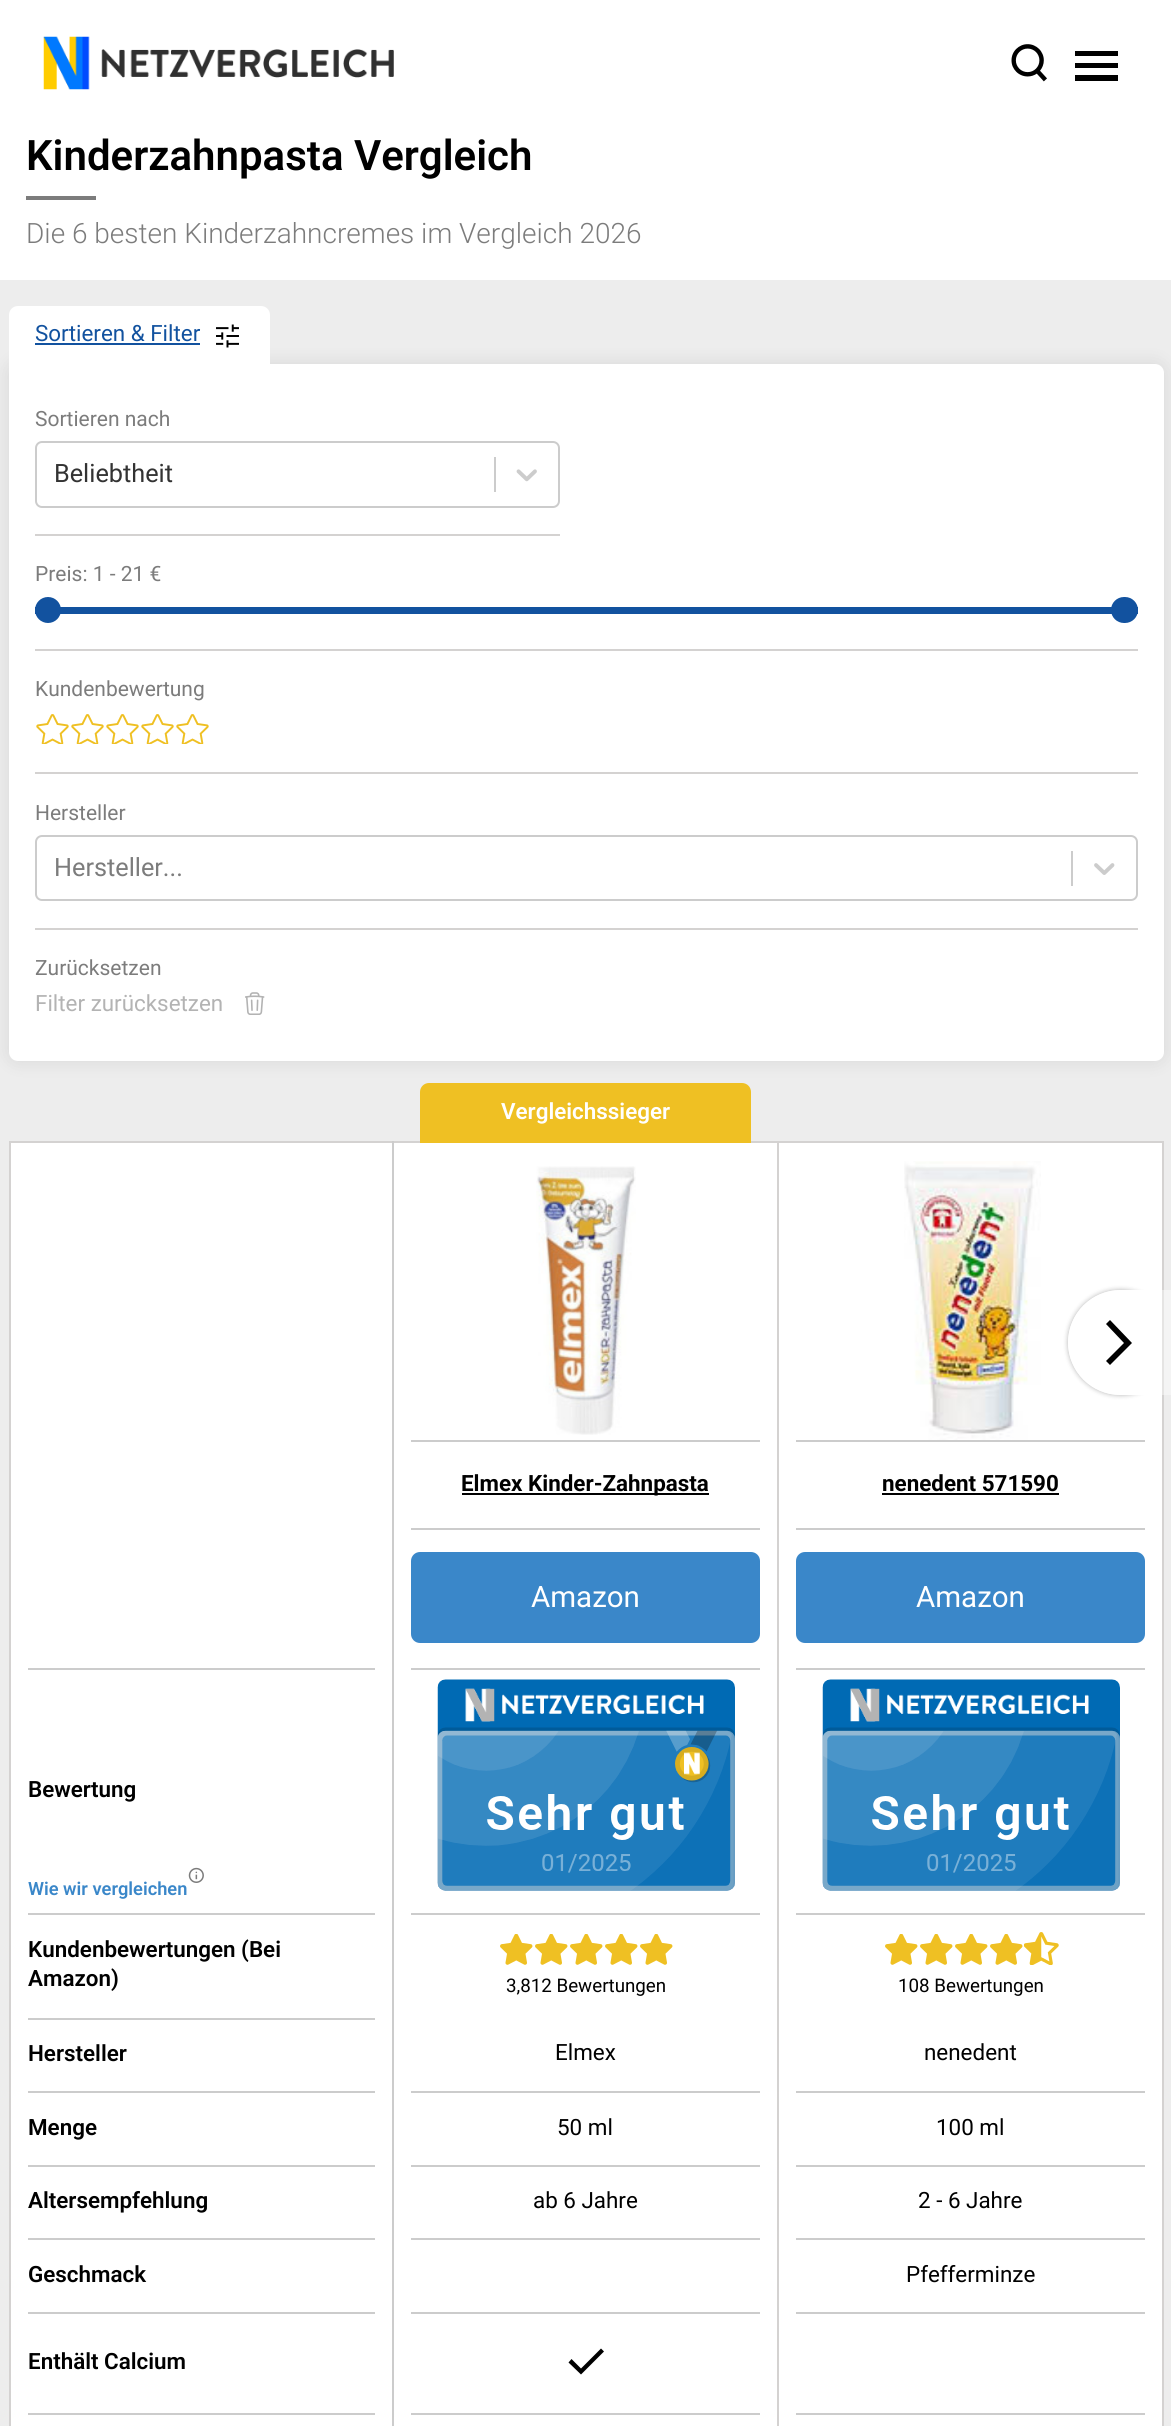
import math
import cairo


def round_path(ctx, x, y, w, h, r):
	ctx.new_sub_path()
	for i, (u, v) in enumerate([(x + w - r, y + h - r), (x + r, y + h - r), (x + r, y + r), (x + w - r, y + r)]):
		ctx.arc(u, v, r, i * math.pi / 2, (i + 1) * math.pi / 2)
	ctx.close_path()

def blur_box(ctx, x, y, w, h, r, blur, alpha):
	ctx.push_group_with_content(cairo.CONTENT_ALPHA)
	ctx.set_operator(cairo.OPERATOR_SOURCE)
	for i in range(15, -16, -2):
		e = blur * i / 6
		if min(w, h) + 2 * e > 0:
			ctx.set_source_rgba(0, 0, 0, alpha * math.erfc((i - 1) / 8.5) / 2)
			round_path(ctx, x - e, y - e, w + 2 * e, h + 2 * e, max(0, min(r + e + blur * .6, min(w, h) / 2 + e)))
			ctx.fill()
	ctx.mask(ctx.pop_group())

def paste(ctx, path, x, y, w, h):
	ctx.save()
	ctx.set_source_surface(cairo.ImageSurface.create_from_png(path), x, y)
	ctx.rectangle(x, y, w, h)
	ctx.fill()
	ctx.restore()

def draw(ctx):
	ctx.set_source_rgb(0.929, 0.929, 0.929)
	ctx.paint()
	ctx.set_source_rgb(1, 1, 1)
	ctx.rectangle(0, 0, 1171, 280)
	ctx.fill()
	paste(ctx, 'media/1.png', 43, 36, 351, 54)
	paste(ctx, 'media/2.png', 1011, 44, 36, 38)
	ctx.set_source_rgb(0, 0, 0)
	ctx.rectangle(1075, 51, 43, 5)
	ctx.rectangle(1075, 63, 43, 5)
	ctx.rectangle(1075, 75, 43, 6)
	ctx.fill()
	ctx.select_font_face('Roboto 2 SemiBold')
	ctx.set_font_size(42)
	ctx.move_to(26, 170)
	ctx.show_text('Kinderzahnpasta Vergleich')
	ctx.set_source_rgb(0.486, 0.486, 0.486)
	ctx.rectangle(26, 196, 70, 4)
	ctx.fill()
	ctx.select_font_face('Roboto Light')
	ctx.set_font_size(28)
	ctx.move_to(26, 243)
	ctx.show_text('Die 6 besten Kinderzahncremes im Vergleich 2026')
	ctx.set_source_rgb(0.831, 0.824, 0.82)
	ctx.rectangle(9, 1141, 1155, 2)
	ctx.fill()
	ctx.set_source_rgb(0.937, 0.753, 0.137)
	ctx.new_path()
	ctx.move_to(429, 1083)
	ctx.line_to(742, 1083)
	ctx.curve_to(747, 1083, 751, 1087, 751, 1092)
	ctx.line_to(751, 1143)
	ctx.line_to(420, 1143)
	ctx.line_to(420, 1092)
	ctx.curve_to(420, 1087, 424, 1083, 429, 1083)
	ctx.close_path()
	ctx.fill()
	ctx.set_source_rgb(0, 0, 0)
	blur_box(ctx, 9, 364, 1155, 697, 9, 9, 0.1)
	ctx.set_source_rgb(1, 1, 1)
	ctx.new_path()
	ctx.move_to(18, 306)
	ctx.line_to(261, 306)
	ctx.curve_to(266, 306, 270, 310, 270, 315)
	ctx.line_to(270, 364)
	ctx.line_to(9, 364)
	ctx.line_to(9, 315)
	ctx.curve_to(9, 310, 13, 306, 18, 306)
	ctx.close_path()
	ctx.fill()
	ctx.select_font_face('Roboto')
	ctx.set_font_size(22.4)
	ctx.set_source_rgb(0.071, 0.322, 0.624)
	ctx.move_to(35, 341)
	ctx.show_text('Sortieren & Filter')
	ctx.rectangle(35, 343, 165, 2)
	ctx.fill()
	paste(ctx, 'media/3.png', 216, 324, 23, 24)
	ctx.set_source_rgb(1, 1, 1)
	ctx.new_path()
	ctx.move_to(9, 364)
	ctx.line_to(1155, 364)
	ctx.curve_to(1160, 364, 1164, 368, 1164, 373)
	ctx.line_to(1164, 1052)
	ctx.curve_to(1164, 1057, 1160, 1061, 1155, 1061)
	ctx.line_to(18, 1061)
	ctx.curve_to(13, 1061, 9, 1057, 9, 1052)
	ctx.close_path()
	ctx.fill()
	ctx.set_source_rgb(0.831, 0.824, 0.82)
	ctx.rectangle(35, 534, 525, 2)
	ctx.fill()
	ctx.set_font_size(21)
	ctx.set_source_rgb(0.486, 0.486, 0.486)
	ctx.move_to(35, 426)
	ctx.show_text('Sortieren nach')
	round_path(ctx, 36, 442, 523, 65, 6)
	ctx.set_source_rgb(0.8, 0.8, 0.8)
	ctx.stroke()
	ctx.set_font_size(25.25)
	ctx.set_source_rgb(0.2, 0.2, 0.2)
	ctx.move_to(54, 482)
	ctx.show_text('Beliebtheit')
	ctx.set_source_rgb(0.8, 0.8, 0.8)
	ctx.rectangle(494, 457, 2, 35)
	ctx.fill()
	paste(ctx, 'media/4.png', 516, 469, 21, 13)
	ctx.set_source_rgb(0.831, 0.824, 0.82)
	ctx.rectangle(35, 649, 1103, 2)
	ctx.fill()
	ctx.set_font_size(21)
	ctx.set_source_rgb(0.486, 0.486, 0.486)
	ctx.move_to(35, 581)
	ctx.show_text('Preis: 1 - 21 €')
	ctx.set_source_rgb(0.071, 0.322, 0.624)
	ctx.rectangle(35, 607, 1103, 7)
	ctx.fill()
	ctx.arc(48, 610, 13, 0, 2 * math.pi)
	ctx.fill()
	round_path(ctx, 1111, 597, 27, 26, 13)
	ctx.fill()
	ctx.set_source_rgb(0.831, 0.824, 0.82)
	ctx.rectangle(35, 772, 1103, 2)
	ctx.fill()
	ctx.set_source_rgb(0.486, 0.486, 0.486)
	ctx.move_to(35, 696)
	ctx.show_text('Kundenbewertung')
	paste(ctx, 'media/5.png', 36, 714, 33, 30)
	paste(ctx, 'media/5.png', 71, 714, 33, 30)
	paste(ctx, 'media/5.png', 106, 714, 33, 30)
	paste(ctx, 'media/5.png', 141, 714, 33, 30)
	paste(ctx, 'media/5.png', 176, 714, 33, 30)
	ctx.set_source_rgb(0.831, 0.824, 0.82)
	ctx.rectangle(35, 928, 1103, 2)
	ctx.fill()
	ctx.set_source_rgb(0.486, 0.486, 0.486)
	ctx.move_to(35, 820)
	ctx.show_text('Hersteller')
	round_path(ctx, 36, 836, 1101, 64, 6)
	ctx.set_source_rgb(0.8, 0.8, 0.8)
	ctx.stroke()
	ctx.set_font_size(25.25)
	ctx.set_source_rgb(0.486, 0.486, 0.486)
	ctx.move_to(54, 876)
	ctx.show_text('Hersteller...')
	ctx.set_source_rgb(0.8, 0.8, 0.8)
	ctx.rectangle(1071, 851, 2, 35)
	ctx.fill()
	paste(ctx, 'media/6.png', 1094, 863, 21, 12)
	ctx.set_font_size(21)
	ctx.set_source_rgb(0.486, 0.486, 0.486)
	ctx.move_to(35, 975)
	ctx.show_text('Zurücksetzen')
	paste(ctx, 'media/7.png', 245, 992, 20, 23)
	ctx.set_font_size(22.4)
	ctx.set_source_rgb(0.702, 0.702, 0.702)
	ctx.move_to(35, 1011)
	ctx.show_text('Filter zurücksetzen')
	ctx.set_source_rgb(1, 1, 1)
	ctx.rectangle(394, 1143, 768, 1283)
	ctx.fill()
	ctx.set_source_rgb(0.831, 0.824, 0.82)
	ctx.rectangle(777, 1141, 2, 1285)
	ctx.fill()
	ctx.select_font_face('Roboto SemiBold')
	ctx.set_source_rgb(1, 1, 1)
	ctx.move_to(501, 1119)
	ctx.show_text('Vergleichssieger')
	paste(ctx, 'media/8.png', 536, 1166, 100, 269)
	ctx.set_source_rgb(0.8, 0.8, 0.8)
	ctx.rectangle(411, 1440, 349, 2)
	ctx.fill()
	ctx.set_source_rgb(0, 0, 0)
	ctx.rectangle(462, 1493, 247, 2)
	ctx.fill()
	ctx.select_font_face('Roboto', cairo.FONT_SLANT_NORMAL, cairo.FONT_WEIGHT_BOLD)
	ctx.move_to(461, 1491)
	ctx.show_text('Elmex Kinder-Zahnpasta')
	ctx.set_source_rgb(0.8, 0.8, 0.8)
	ctx.rectangle(411, 1528, 349, 2)
	ctx.fill()
	ctx.set_source_rgb(0.227, 0.529, 0.788)
	round_path(ctx, 411, 1552, 349, 91, 9)
	ctx.fill()
	ctx.select_font_face('Roboto')
	ctx.set_font_size(29.5)
	ctx.set_source_rgb(1, 1, 1)
	ctx.move_to(531, 1607)
	ctx.show_text('Amazon')
	ctx.set_source_rgb(0.8, 0.8, 0.8)
	ctx.rectangle(411, 1668, 349, 2)
	ctx.fill()
	paste(ctx, 'media/9.png', 437, 1679, 298, 212)
	ctx.rectangle(411, 1913, 349, 2)
	ctx.fill()
	paste(ctx, 'media/10.png', 500, 1934, 33, 31)
	paste(ctx, 'media/10.png', 535, 1934, 33, 31)
	paste(ctx, 'media/10.png', 570, 1934, 33, 31)
	paste(ctx, 'media/10.png', 605, 1934, 33, 31)
	paste(ctx, 'media/10.png', 640, 1934, 33, 31)
	ctx.set_font_size(18.75)
	ctx.set_source_rgb(0, 0, 0)
	ctx.move_to(506, 1992)
	ctx.show_text('3,812 Bewertungen')
	ctx.set_font_size(22.4)
	ctx.move_to(555, 2060)
	ctx.show_text('Elmex')
	ctx.set_source_rgb(0.8, 0.8, 0.8)
	ctx.rectangle(411, 2091, 349, 2)
	ctx.fill()
	ctx.set_source_rgb(0, 0, 0)
	ctx.move_to(557, 2135)
	ctx.show_text('50 ml')
	ctx.set_source_rgb(0.8, 0.8, 0.8)
	ctx.rectangle(411, 2165, 349, 2)
	ctx.fill()
	ctx.set_source_rgb(0, 0, 0)
	ctx.move_to(533, 2208)
	ctx.show_text('ab 6 Jahre')
	ctx.set_source_rgb(0.8, 0.8, 0.8)
	ctx.rectangle(411, 2238, 349, 2)
	ctx.fill()
	ctx.rectangle(411, 2312, 349, 2)
	ctx.fill()
	ctx.set_source_rgb(0, 0, 0)
	ctx.new_path()
	ctx.move_to(581, 2374.5)
	ctx.line_to(568.5, 2362.5)
	ctx.line_to(571.5, 2359)
	ctx.line_to(581, 2368.5)
	ctx.line_to(601, 2348.5)
	ctx.line_to(604, 2351.5)
	ctx.close_path()
	ctx.fill()
	ctx.set_source_rgb(0.8, 0.8, 0.8)
	ctx.rectangle(411, 2413, 349, 2)
	ctx.fill()
	ctx.set_source_rgb(1, 1, 1)
	ctx.rectangle(11, 1143, 381, 1283)
	ctx.fill()
	ctx.set_source_rgb(0.8, 0.8, 0.8)
	ctx.rectangle(392, 1141, 2, 1285)
	ctx.fill()
	ctx.set_source_rgb(0.831, 0.824, 0.82)
	ctx.rectangle(9, 1141, 2, 1285)
	ctx.fill()
	ctx.set_source_rgb(0.8, 0.8, 0.8)
	ctx.rectangle(28, 1668, 347, 2)
	ctx.fill()
	ctx.select_font_face('Roboto SemiBold')
	ctx.set_source_rgb(0, 0, 0)
	ctx.move_to(28, 1797)
	ctx.show_text('Bewertung')
	paste(ctx, 'media/11.png', 188, 1867, 16, 16)
	ctx.set_font_size(18.25)
	ctx.set_source_rgb(0.227, 0.529, 0.788)
	ctx.move_to(28, 1895)
	ctx.show_text('Wie wir vergleichen')
	ctx.set_source_rgb(0.8, 0.8, 0.8)
	ctx.rectangle(28, 1913, 347, 2)
	ctx.fill()
	ctx.set_font_size(22.4)
	ctx.set_source_rgb(0, 0, 0)
	ctx.move_to(28, 1957)
	ctx.show_text('Kundenbewertungen (Bei')
	ctx.move_to(28, 1986)
	ctx.show_text('Amazon)')
	ctx.set_source_rgb(0.8, 0.8, 0.8)
	ctx.rectangle(28, 2018, 347, 2)
	ctx.fill()
	ctx.set_source_rgb(0, 0, 0)
	ctx.move_to(28, 2061)
	ctx.show_text('Hersteller')
	ctx.set_source_rgb(0.8, 0.8, 0.8)
	ctx.rectangle(28, 2091, 347, 2)
	ctx.fill()
	ctx.set_source_rgb(0, 0, 0)
	ctx.move_to(28, 2135)
	ctx.show_text('Menge')
	ctx.set_source_rgb(0.8, 0.8, 0.8)
	ctx.rectangle(28, 2165, 347, 2)
	ctx.fill()
	ctx.set_source_rgb(0, 0, 0)
	ctx.move_to(28, 2208)
	ctx.show_text('Altersempfehlung')
	ctx.set_source_rgb(0.8, 0.8, 0.8)
	ctx.rectangle(28, 2238, 347, 2)
	ctx.fill()
	ctx.set_source_rgb(0, 0, 0)
	ctx.move_to(28, 2282)
	ctx.show_text('Geschmack')
	ctx.set_source_rgb(0.8, 0.8, 0.8)
	ctx.rectangle(28, 2312, 347, 2)
	ctx.fill()
	ctx.set_source_rgb(0, 0, 0)
	ctx.move_to(28, 2369)
	ctx.show_text('Enthält Calcium')
	ctx.set_source_rgb(0.8, 0.8, 0.8)
	ctx.rectangle(28, 2413, 347, 2)
	ctx.fill()
	ctx.set_source_rgb(0.831, 0.824, 0.82)
	ctx.rectangle(1162, 1141, 2, 1285)
	ctx.fill()
	paste(ctx, 'media/12.png', 904, 1161, 137, 279)
	ctx.set_source_rgb(0.8, 0.8, 0.8)
	ctx.rectangle(796, 1440, 349, 2)
	ctx.fill()
	ctx.select_font_face('Roboto', cairo.FONT_SLANT_NORMAL, cairo.FONT_WEIGHT_BOLD)
	ctx.set_source_rgb(0, 0, 0)
	ctx.move_to(882, 1491)
	ctx.show_text('nenedent 571590')
	ctx.rectangle(882, 1493, 177, 2)
	ctx.fill()
	ctx.set_source_rgb(0.8, 0.8, 0.8)
	ctx.rectangle(796, 1528, 349, 2)
	ctx.fill()
	ctx.set_source_rgb(0.227, 0.529, 0.788)
	round_path(ctx, 796, 1552, 349, 91, 9)
	ctx.fill()
	ctx.select_font_face('Roboto')
	ctx.set_font_size(29.5)
	ctx.set_source_rgb(1, 1, 1)
	ctx.move_to(916, 1607)
	ctx.show_text('Amazon')
	ctx.set_source_rgb(0.8, 0.8, 0.8)
	ctx.rectangle(796, 1668, 349, 2)
	ctx.fill()
	paste(ctx, 'media/13.png', 822, 1679, 298, 212)
	ctx.rectangle(796, 1913, 349, 2)
	ctx.fill()
	paste(ctx, 'media/10.png', 885, 1934, 33, 31)
	paste(ctx, 'media/10.png', 920, 1934, 33, 31)
	paste(ctx, 'media/10.png', 955, 1934, 33, 31)
	paste(ctx, 'media/10.png', 990, 1934, 33, 31)
	paste(ctx, 'media/14.png', 1024, 1932, 35, 33)
	ctx.set_font_size(18.75)
	ctx.set_source_rgb(0, 0, 0)
	ctx.move_to(898, 1992)
	ctx.show_text('108 Bewertungen')
	ctx.set_font_size(22.4)
	ctx.move_to(924, 2060)
	ctx.show_text('nenedent')
	ctx.set_source_rgb(0.8, 0.8, 0.8)
	ctx.rectangle(796, 2091, 349, 2)
	ctx.fill()
	ctx.set_source_rgb(0, 0, 0)
	ctx.move_to(936, 2135)
	ctx.show_text('100 ml')
	ctx.set_source_rgb(0.8, 0.8, 0.8)
	ctx.rectangle(796, 2165, 349, 2)
	ctx.fill()
	ctx.set_source_rgb(0, 0, 0)
	ctx.move_to(918, 2208)
	ctx.show_text('2 - 6 Jahre')
	ctx.set_source_rgb(0.8, 0.8, 0.8)
	ctx.rectangle(796, 2238, 349, 2)
	ctx.fill()
	ctx.set_source_rgb(0, 0, 0)
	ctx.move_to(906, 2282)
	ctx.show_text('Pfefferminze')
	ctx.set_source_rgb(0.8, 0.8, 0.8)
	ctx.rectangle(796, 2312, 349, 2)
	ctx.fill()
	ctx.rectangle(796, 2413, 349, 2)
	ctx.fill()
	ctx.save()
	ctx.set_fill_rule(cairo.FILL_RULE_EVEN_ODD)
	ctx.new_path()
	ctx.move_to(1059, 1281)
	ctx.line_to(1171, 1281)
	ctx.line_to(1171, 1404)
	ctx.line_to(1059, 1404)
	ctx.close_path()
	ctx.move_to(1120.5, 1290)
	ctx.line_to(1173, 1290)
	ctx.line_to(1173, 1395)
	ctx.line_to(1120.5, 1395)
	ctx.curve_to(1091.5, 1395, 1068, 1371.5, 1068, 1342.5)
	ctx.curve_to(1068, 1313.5, 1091.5, 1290, 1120.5, 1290)
	ctx.close_path()
	ctx.clip()
	ctx.set_source_rgb(0, 0, 0)
	blur_box(ctx, 1068, 1290, 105, 105, 52.5, 2.5, 0.3)
	ctx.restore()
	ctx.set_source_rgba(1, 1, 1, 0.4)
	ctx.new_path()
	ctx.move_to(1120.5, 1290)
	ctx.line_to(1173, 1290)
	ctx.line_to(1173, 1395)
	ctx.line_to(1120.5, 1395)
	ctx.curve_to(1091.5, 1395, 1068, 1371.5, 1068, 1342.5)
	ctx.curve_to(1068, 1313.5, 1091.5, 1290, 1120.5, 1290)
	ctx.close_path()
	ctx.fill()
	ctx.set_source_rgb(0, 0, 0)
	ctx.new_path()
	ctx.move_to(1110, 1365)
	ctx.line_to(1106, 1361)
	ctx.line_to(1124, 1343)
	ctx.line_to(1106, 1324)
	ctx.line_to(1110, 1320)
	ctx.line_to(1132, 1343)
	ctx.close_path()
	ctx.fill()


surface = cairo.ImageSurface(cairo.FORMAT_RGB24, 1171, 2426)
ctx = cairo.Context(surface)
options = cairo.FontOptions()
options.set_hint_metrics(cairo.HINT_METRICS_OFF)
options.set_hint_style(cairo.HINT_STYLE_NONE)
ctx.set_font_options(options)
ctx.set_miter_limit(4)
draw(ctx)
surface.write_to_png('image.png')
